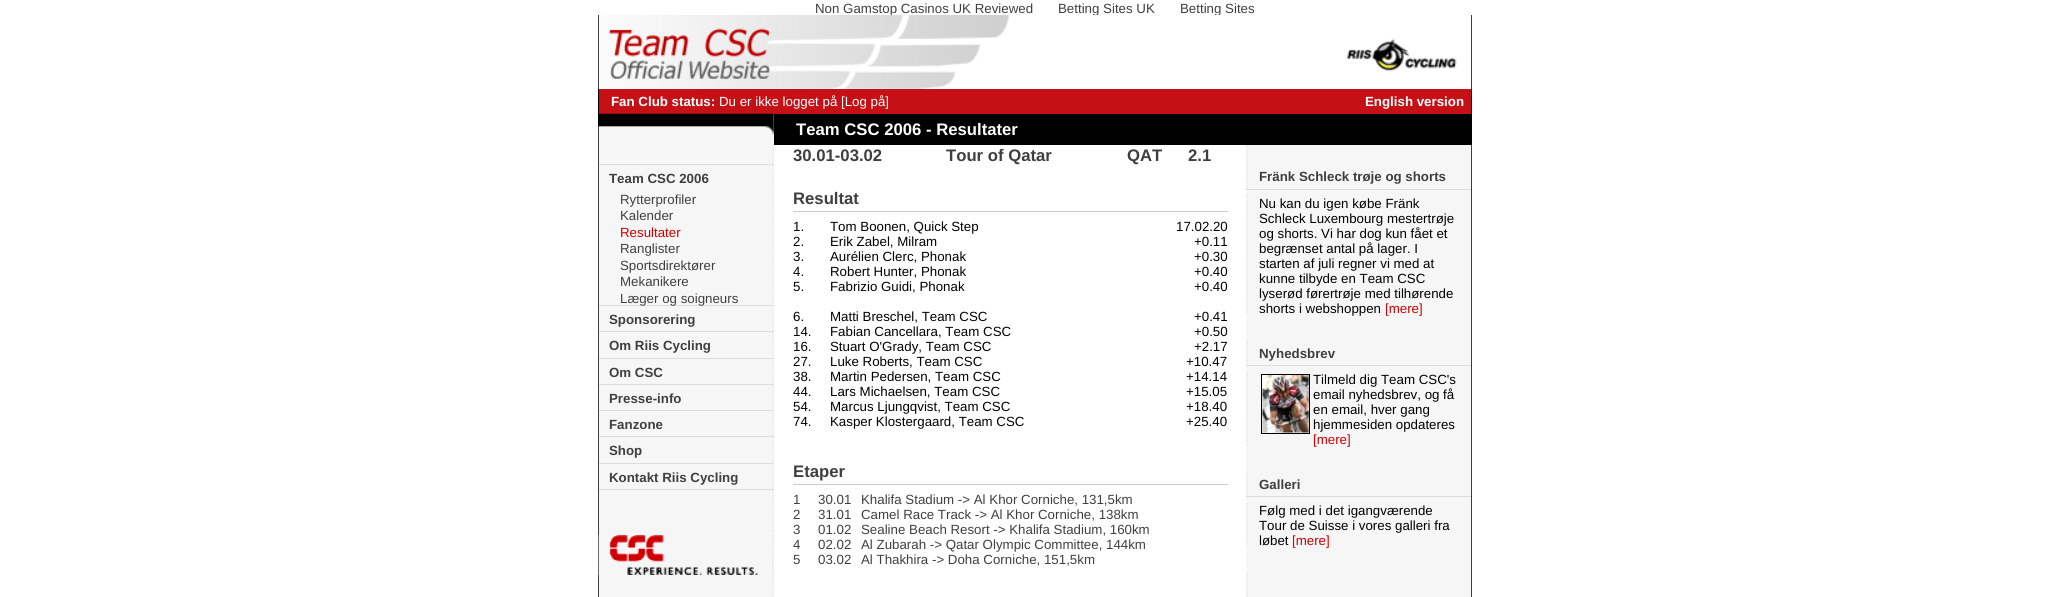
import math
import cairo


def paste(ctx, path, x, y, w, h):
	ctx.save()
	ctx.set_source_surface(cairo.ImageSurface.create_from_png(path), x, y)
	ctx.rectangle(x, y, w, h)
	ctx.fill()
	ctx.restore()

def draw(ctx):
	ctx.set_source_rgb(1, 1, 1)
	ctx.paint()
	ctx.select_font_face('Liberation Sans')
	ctx.set_font_size(13.3)
	ctx.set_source_rgb(0.247, 0.247, 0.247)
	for x, y, s in [
		(815, 13, 'Non Gamstop Casinos UK Reviewed'),
		(1058, 13, 'Betting Sites UK'),
		(1180, 13, 'Betting Sites'),
	]:
		ctx.move_to(x, y)
		ctx.show_text(s)
	ctx.set_source_rgb(0, 0, 0)
	ctx.rectangle(1471, 15, 1, 582)
	ctx.fill()
	ctx.rectangle(598, 15, 1, 582)
	ctx.fill()
	paste(ctx, 'media/1.png', 598, 15, 874, 74)
	ctx.set_source_rgb(0.773, 0.067, 0.086)
	ctx.rectangle(599, 89, 872, 25)
	ctx.fill()
	ctx.select_font_face('Liberation Sans', cairo.FONT_SLANT_NORMAL, cairo.FONT_WEIGHT_BOLD)
	ctx.set_source_rgb(1, 1, 1)
	ctx.move_to(611, 106)
	ctx.show_text('Fan Club status:')
	ctx.select_font_face('Liberation Sans')
	ctx.move_to(719, 106)
	ctx.show_text('Du er ikke logget på [Log på]')
	ctx.select_font_face('Liberation Sans', cairo.FONT_SLANT_NORMAL, cairo.FONT_WEIGHT_BOLD)
	ctx.move_to(1365, 106)
	ctx.show_text('English version')
	paste(ctx, 'media/2.png', 598, 113, 176, 32)
	ctx.set_source_rgb(0, 0, 0)
	ctx.rectangle(774, 114, 697, 31)
	ctx.fill()
	ctx.set_font_size(16.7)
	ctx.set_source_rgb(1, 1, 1)
	ctx.move_to(796, 135)
	ctx.show_text('Team CSC 2006 - Resultater')
	paste(ctx, 'media/3.png', 598, 145, 176, 452)
	ctx.set_source_rgb(0.863, 0.863, 0.863)
	ctx.rectangle(599, 164, 175, 1)
	ctx.fill()
	ctx.set_font_size(13.3)
	ctx.set_source_rgb(0.247, 0.247, 0.247)
	ctx.move_to(609, 183)
	ctx.show_text('Team CSC 2006')
	ctx.select_font_face('Liberation Sans')
	ctx.move_to(620, 204)
	ctx.show_text('Rytterprofiler')
	ctx.move_to(620, 220)
	ctx.show_text('Kalender')
	ctx.set_source_rgb(0.8, 0, 0)
	ctx.move_to(620, 237)
	ctx.show_text('Resultater')
	ctx.set_source_rgb(0.247, 0.247, 0.247)
	for x, y, s in [
		(620, 253, 'Ranglister'),
		(620, 270, 'Sportsdirektører'),
		(620, 286, 'Mekanikere'),
	]:
		ctx.move_to(x, y)
		ctx.show_text(s)
	ctx.set_source_rgb(0.863, 0.863, 0.863)
	ctx.rectangle(599, 305, 175, 1)
	ctx.fill()
	ctx.set_source_rgb(0.247, 0.247, 0.247)
	ctx.move_to(620, 303)
	ctx.show_text('Læger og soigneurs')
	ctx.select_font_face('Liberation Sans', cairo.FONT_SLANT_NORMAL, cairo.FONT_WEIGHT_BOLD)
	ctx.move_to(609, 324)
	ctx.show_text('Sponsorering')
	ctx.set_source_rgb(0.863, 0.863, 0.863)
	ctx.rectangle(599, 331, 175, 1)
	ctx.fill()
	ctx.set_source_rgb(0.247, 0.247, 0.247)
	ctx.move_to(609, 350)
	ctx.show_text('Om Riis Cycling')
	ctx.set_source_rgb(0.863, 0.863, 0.863)
	ctx.rectangle(599, 358, 175, 1)
	ctx.fill()
	ctx.set_source_rgb(0.247, 0.247, 0.247)
	ctx.move_to(609, 377)
	ctx.show_text('Om CSC')
	ctx.set_source_rgb(0.863, 0.863, 0.863)
	ctx.rectangle(599, 384, 175, 1)
	ctx.fill()
	ctx.set_source_rgb(0.247, 0.247, 0.247)
	ctx.move_to(609, 403)
	ctx.show_text('Presse-info')
	ctx.set_source_rgb(0.863, 0.863, 0.863)
	ctx.rectangle(599, 410, 175, 1)
	ctx.fill()
	ctx.set_source_rgb(0.247, 0.247, 0.247)
	ctx.move_to(609, 429)
	ctx.show_text('Fanzone')
	ctx.set_source_rgb(0.863, 0.863, 0.863)
	ctx.rectangle(599, 436, 175, 1)
	ctx.fill()
	ctx.set_source_rgb(0.247, 0.247, 0.247)
	ctx.move_to(609, 455)
	ctx.show_text('Shop')
	ctx.set_source_rgb(0.863, 0.863, 0.863)
	ctx.rectangle(599, 463, 175, 1)
	ctx.fill()
	ctx.set_source_rgb(0.247, 0.247, 0.247)
	ctx.move_to(609, 482)
	ctx.show_text('Kontakt Riis Cycling')
	ctx.set_source_rgb(0.863, 0.863, 0.863)
	ctx.rectangle(599, 489, 175, 1)
	ctx.fill()
	paste(ctx, 'media/4.png', 598, 535, 176, 40)
	ctx.set_font_size(16.7)
	ctx.set_source_rgb(0.247, 0.247, 0.247)
	for x, y, s in [
		(793, 161, '30.01-03.02'),
		(946, 161, 'Tour of Qatar'),
		(1127, 161, 'QAT'),
		(1188, 161, '2.1'),
		(793, 204, 'Resultat'),
	]:
		ctx.move_to(x, y)
		ctx.show_text(s)
	ctx.set_source_rgb(0.804, 0.804, 0.804)
	ctx.rectangle(793, 211, 435, 1)
	ctx.fill()
	ctx.select_font_face('Liberation Sans')
	ctx.set_font_size(13.3)
	ctx.set_source_rgb(0, 0, 0)
	for x, y, s in [
		(793, 231, '1.'),
		(830, 231, 'Tom Boonen, Quick Step'),
		(1176, 231, '17.02.20'),
		(793, 246, '2.'),
		(830, 246, 'Erik Zabel, Milram'),
		(1194, 246, '+0.11'),
		(793, 261, '3.'),
		(830, 261, 'Aurélien Clerc, Phonak'),
		(1194, 261, '+0.30'),
		(793, 276, '4.'),
		(830, 276, 'Robert Hunter, Phonak'),
		(1194, 276, '+0.40'),
		(793, 291, '5.'),
		(830, 291, 'Fabrizio Guidi, Phonak'),
		(1194, 291, '+0.40'),
		(793, 321, '6.'),
		(830, 321, 'Matti Breschel, Team CSC'),
		(1194, 321, '+0.41'),
		(793, 336, '14.'),
		(830, 336, 'Fabian Cancellara, Team CSC'),
		(1194, 336, '+0.50'),
		(793, 351, '16.'),
		(830, 351, 'Stuart O\'Grady, Team CSC'),
		(1194, 351, '+2.17'),
		(793, 366, '27.'),
		(830, 366, 'Luke Roberts, Team CSC'),
		(1186, 366, '+10.47'),
		(793, 381, '38.'),
		(830, 381, 'Martin Pedersen, Team CSC'),
		(1186, 381, '+14.14'),
		(793, 396, '44.'),
		(830, 396, 'Lars Michaelsen, Team CSC'),
		(1186, 396, '+15.05'),
		(793, 411, '54.'),
		(830, 411, 'Marcus Ljungqvist, Team CSC'),
		(1186, 411, '+18.40'),
		(793, 426, '74.'),
		(830, 426, 'Kasper Klostergaard, Team CSC'),
		(1186, 426, '+25.40'),
	]:
		ctx.move_to(x, y)
		ctx.show_text(s)
	ctx.select_font_face('Liberation Sans', cairo.FONT_SLANT_NORMAL, cairo.FONT_WEIGHT_BOLD)
	ctx.set_font_size(16.7)
	ctx.set_source_rgb(0.247, 0.247, 0.247)
	ctx.move_to(793, 477)
	ctx.show_text('Etaper')
	ctx.set_source_rgb(0.804, 0.804, 0.804)
	ctx.rectangle(793, 484, 435, 1)
	ctx.fill()
	ctx.select_font_face('Liberation Sans')
	ctx.set_font_size(13.3)
	ctx.set_source_rgb(0.247, 0.247, 0.247)
	for x, y, s in [
		(793, 504, '1'),
		(818, 504, '30.01'),
		(861, 504, 'Khalifa Stadium -> Al Khor Corniche, 131,5km'),
		(793, 519, '2'),
		(818, 519, '31.01'),
		(861, 519, 'Camel Race Track -> Al Khor Corniche, 138km'),
		(793, 534, '3'),
		(818, 534, '01.02'),
		(861, 534, 'Sealine Beach Resort -> Khalifa Stadium, 160km'),
		(793, 549, '4'),
		(818, 549, '02.02'),
		(861, 549, 'Al Zubarah -> Qatar Olympic Committee, 144km'),
		(793, 564, '5'),
		(818, 564, '03.02'),
		(861, 564, 'Al Thakhira -> Doha Corniche, 151,5km'),
	]:
		ctx.move_to(x, y)
		ctx.show_text(s)
	paste(ctx, 'media/5.png', 1246, 145, 226, 452)
	ctx.select_font_face('Liberation Sans', cairo.FONT_SLANT_NORMAL, cairo.FONT_WEIGHT_BOLD)
	ctx.move_to(1259, 181)
	ctx.show_text('Fränk Schleck trøje og shorts')
	ctx.set_source_rgb(0.863, 0.863, 0.863)
	ctx.rectangle(1246, 189, 225, 1)
	ctx.fill()
	ctx.set_source_rgb(0.965, 0.965, 0.965)
	ctx.rectangle(1246, 190, 2, 5)
	ctx.fill()
	ctx.select_font_face('Liberation Sans')
	ctx.set_source_rgb(0, 0, 0)
	for x, y, s in [
		(1259, 208, 'Nu kan du igen købe Fränk'),
		(1259, 223, 'Schleck Luxembourg mestertrøje'),
		(1259, 238, 'og shorts. Vi har dog kun fået et'),
		(1259, 253, 'begrænset antal på lager. I'),
		(1259, 268, 'starten af juli regner vi med at'),
		(1259, 283, 'kunne tilbyde en Team CSC'),
		(1259, 298, 'lyserød førertrøje med tilhørende'),
		(1259, 313, 'shorts i webshoppen'),
	]:
		ctx.move_to(x, y)
		ctx.show_text(s)
	ctx.set_source_rgb(0.8, 0, 0)
	ctx.move_to(1385, 313)
	ctx.show_text('[mere]')
	ctx.set_source_rgb(0.965, 0.965, 0.965)
	ctx.rectangle(1246, 315, 2, 25)
	ctx.fill()
	ctx.select_font_face('Liberation Sans', cairo.FONT_SLANT_NORMAL, cairo.FONT_WEIGHT_BOLD)
	ctx.set_source_rgb(0.247, 0.247, 0.247)
	ctx.move_to(1259, 358)
	ctx.show_text('Nyhedsbrev')
	ctx.set_source_rgb(0.863, 0.863, 0.863)
	ctx.rectangle(1246, 365, 225, 1)
	ctx.fill()
	ctx.set_source_rgb(0.965, 0.965, 0.965)
	ctx.rectangle(1246, 367, 2, 4)
	ctx.fill()
	ctx.rectangle(1261.5, 374.5, 48, 59)
	ctx.set_source_rgb(0, 0, 0)
	ctx.set_line_width(1)
	ctx.stroke()
	paste(ctx, 'media/6.png', 1262, 375, 47, 58)
	ctx.select_font_face('Liberation Sans')
	for x, y, s in [
		(1313, 384, 'Tilmeld dig Team CSC\'s'),
		(1313, 399, 'email nyhedsbrev, og få'),
		(1313, 414, 'en email, hver gang'),
		(1313, 429, 'hjemmesiden opdateres'),
	]:
		ctx.move_to(x, y)
		ctx.show_text(s)
	ctx.set_source_rgb(0.8, 0, 0)
	ctx.move_to(1313, 444)
	ctx.show_text('[mere]')
	ctx.set_source_rgb(0.965, 0.965, 0.965)
	ctx.rectangle(1246, 447, 2, 24)
	ctx.fill()
	ctx.select_font_face('Liberation Sans', cairo.FONT_SLANT_NORMAL, cairo.FONT_WEIGHT_BOLD)
	ctx.set_source_rgb(0.247, 0.247, 0.247)
	ctx.move_to(1259, 489)
	ctx.show_text('Galleri')
	ctx.set_source_rgb(0.863, 0.863, 0.863)
	ctx.rectangle(1246, 496, 225, 1)
	ctx.fill()
	ctx.set_source_rgb(0.965, 0.965, 0.965)
	ctx.rectangle(1246, 498, 2, 5)
	ctx.fill()
	ctx.select_font_face('Liberation Sans')
	ctx.set_source_rgb(0, 0, 0)
	for x, y, s in [
		(1259, 515, 'Følg med i det igangværende'),
		(1259, 530, 'Tour de Suisse i vores galleri fra'),
		(1259, 545, 'løbet'),
	]:
		ctx.move_to(x, y)
		ctx.show_text(s)
	ctx.set_source_rgb(0.8, 0, 0)
	ctx.move_to(1292, 545)
	ctx.show_text('[mere]')
	ctx.set_source_rgb(0.965, 0.965, 0.965)
	ctx.rectangle(1246, 548, 2, 25)
	ctx.fill()


surface = cairo.ImageSurface(cairo.FORMAT_RGB24, 2069, 597)
ctx = cairo.Context(surface)
options = cairo.FontOptions()
options.set_hint_metrics(cairo.HINT_METRICS_OFF)
options.set_hint_style(cairo.HINT_STYLE_NONE)
ctx.set_font_options(options)
ctx.set_miter_limit(4)
draw(ctx)
surface.write_to_png('image.png')
